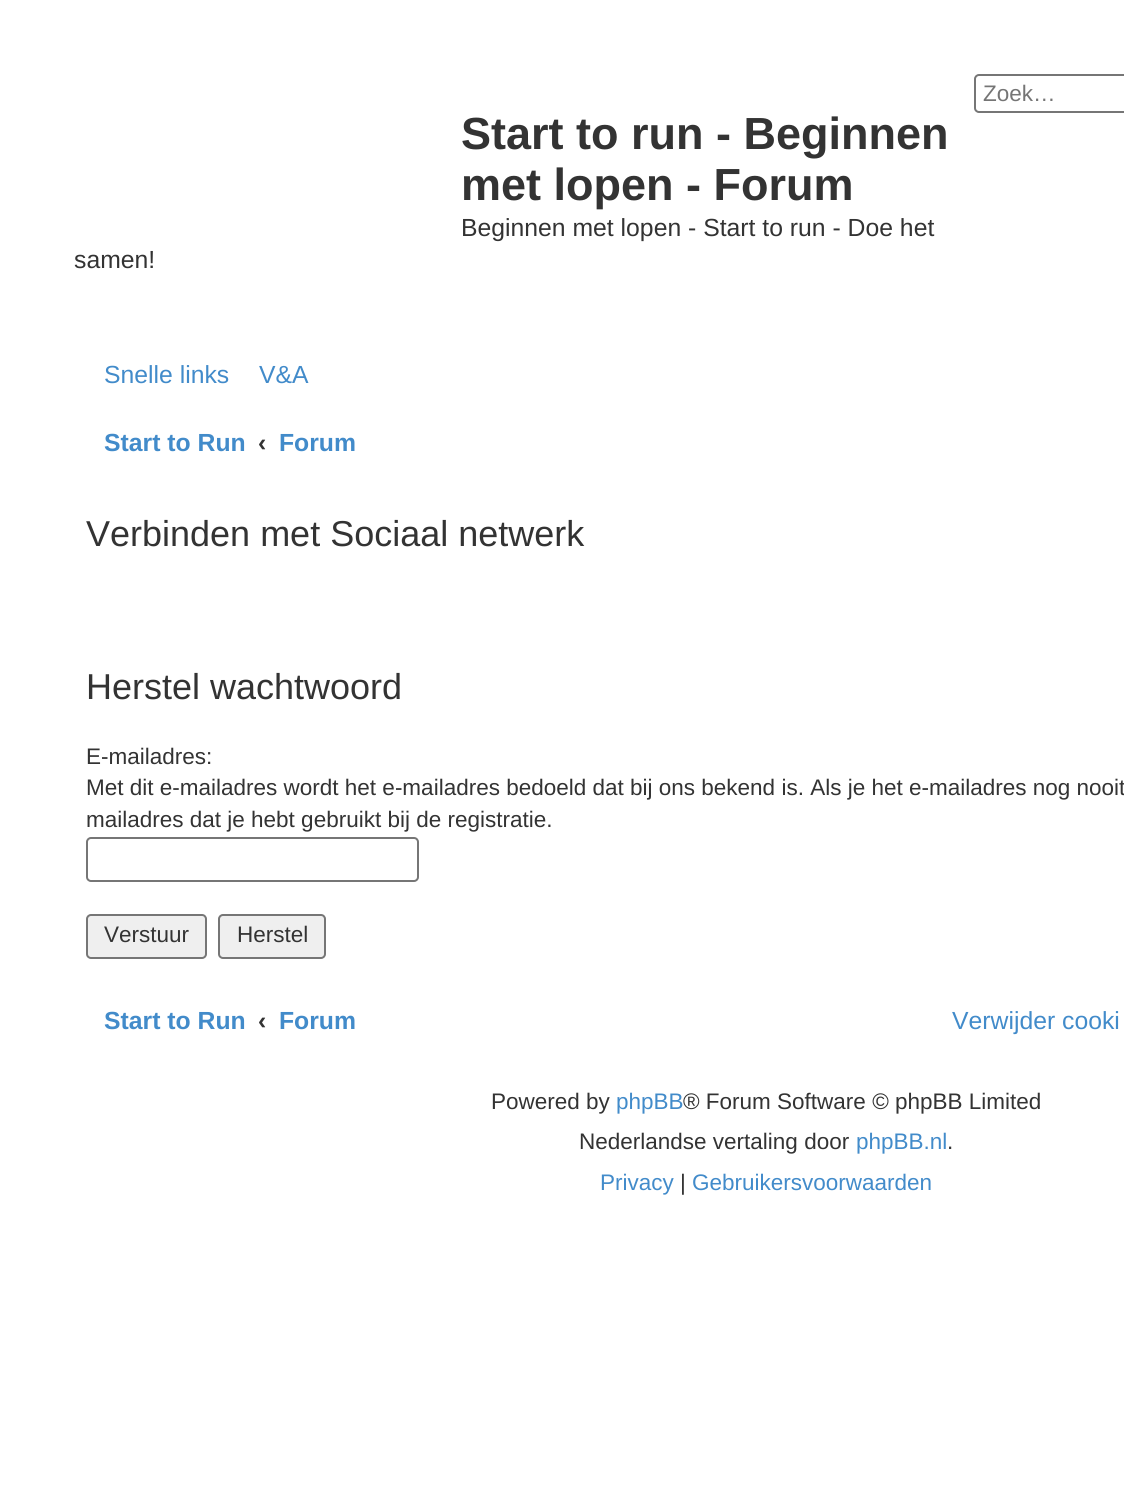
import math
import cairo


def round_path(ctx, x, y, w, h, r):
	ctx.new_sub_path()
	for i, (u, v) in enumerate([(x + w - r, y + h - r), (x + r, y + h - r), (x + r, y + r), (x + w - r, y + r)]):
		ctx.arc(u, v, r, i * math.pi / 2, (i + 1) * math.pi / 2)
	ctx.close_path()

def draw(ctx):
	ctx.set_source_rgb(1, 1, 1)
	ctx.paint()
	round_path(ctx, 975, 75, 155, 37, 4)
	ctx.set_source_rgb(0.463, 0.463, 0.463)
	ctx.stroke()
	ctx.select_font_face('Liberation Sans')
	ctx.set_font_size(22.5)
	ctx.set_source_rgb(0.459, 0.459, 0.459)
	ctx.move_to(983, 101)
	ctx.show_text('Zoek…')
	ctx.select_font_face('Liberation Sans', cairo.FONT_SLANT_NORMAL, cairo.FONT_WEIGHT_BOLD)
	ctx.set_font_size(45)
	ctx.set_source_rgb(0.2, 0.2, 0.2)
	ctx.move_to(461, 149)
	ctx.show_text('Start to run - Beginnen')
	ctx.move_to(461, 200)
	ctx.show_text('met lopen - Forum')
	ctx.select_font_face('Liberation Sans')
	ctx.set_font_size(24.75)
	ctx.move_to(461, 236)
	ctx.show_text('Beginnen met lopen - Start to run - Doe het')
	ctx.move_to(74, 268)
	ctx.show_text('samen!')
	ctx.set_source_rgb(0.259, 0.545, 0.792)
	ctx.move_to(104, 383)
	ctx.show_text('Snelle links')
	ctx.move_to(259, 383)
	ctx.show_text('V&A')
	ctx.select_font_face('Liberation Sans', cairo.FONT_SLANT_NORMAL, cairo.FONT_WEIGHT_BOLD)
	ctx.move_to(104, 451)
	ctx.show_text('Start to Run')
	ctx.set_source_rgb(0.2, 0.2, 0.2)
	ctx.move_to(258, 451)
	ctx.show_text('‹')
	ctx.set_source_rgb(0.259, 0.545, 0.792)
	ctx.move_to(279, 451)
	ctx.show_text('Forum')
	ctx.select_font_face('Liberation Sans')
	ctx.set_font_size(36)
	ctx.set_source_rgb(0.2, 0.2, 0.2)
	ctx.move_to(86, 546)
	ctx.show_text('Verbinden met Sociaal netwerk')
	ctx.move_to(86, 699)
	ctx.show_text('Herstel wachtwoord')
	ctx.set_font_size(22.5)
	for x, y, s in [
		(86, 764, 'E-mailadres:'),
		(86, 795, 'Met dit e-mailadres wordt het e-mailadres bedoeld dat bij ons bekend is. Als je het e-mailadres nog nooit'),
		(86, 827, 'mailadres dat je hebt gebruikt bij de registratie.'),
	]:
		ctx.move_to(x, y)
		ctx.show_text(s)
	round_path(ctx, 87, 838, 331, 43, 4)
	ctx.set_source_rgb(0.463, 0.463, 0.463)
	ctx.stroke()
	ctx.set_source_rgb(0.937, 0.937, 0.937)
	round_path(ctx, 87, 915, 119, 43, 4)
	ctx.fill_preserve()
	ctx.set_source_rgb(0.463, 0.463, 0.463)
	ctx.stroke()
	ctx.set_source_rgb(0.2, 0.2, 0.2)
	ctx.move_to(104, 942)
	ctx.show_text('Verstuur')
	ctx.set_source_rgb(0.937, 0.937, 0.937)
	round_path(ctx, 219, 915, 106, 43, 4)
	ctx.fill_preserve()
	ctx.set_source_rgb(0.463, 0.463, 0.463)
	ctx.stroke()
	ctx.set_source_rgb(0.2, 0.2, 0.2)
	ctx.move_to(237, 942)
	ctx.show_text('Herstel')
	ctx.select_font_face('Liberation Sans', cairo.FONT_SLANT_NORMAL, cairo.FONT_WEIGHT_BOLD)
	ctx.set_font_size(24.75)
	ctx.set_source_rgb(0.259, 0.545, 0.792)
	ctx.move_to(104, 1029)
	ctx.show_text('Start to Run')
	ctx.set_source_rgb(0.2, 0.2, 0.2)
	ctx.move_to(258, 1029)
	ctx.show_text('‹')
	ctx.set_source_rgb(0.259, 0.545, 0.792)
	ctx.move_to(279, 1029)
	ctx.show_text('Forum')
	ctx.select_font_face('Liberation Sans')
	ctx.move_to(952, 1029)
	ctx.show_text('Verwijder cooki')
	ctx.set_font_size(22.5)
	ctx.set_source_rgb(0.2, 0.2, 0.2)
	ctx.move_to(491, 1109)
	ctx.show_text('Powered by')
	ctx.set_source_rgb(0.259, 0.545, 0.792)
	ctx.move_to(616, 1109)
	ctx.show_text('phpBB')
	ctx.set_source_rgb(0.2, 0.2, 0.2)
	ctx.move_to(683, 1109)
	ctx.show_text('® Forum Software © phpBB Limited')
	ctx.move_to(579, 1149)
	ctx.show_text('Nederlandse vertaling door')
	ctx.set_source_rgb(0.259, 0.545, 0.792)
	ctx.move_to(856, 1149)
	ctx.show_text('phpBB.nl')
	ctx.set_source_rgb(0.2, 0.2, 0.2)
	ctx.move_to(947, 1149)
	ctx.show_text('.')
	ctx.set_source_rgb(0.259, 0.545, 0.792)
	ctx.move_to(600, 1190)
	ctx.show_text('Privacy')
	ctx.set_source_rgb(0.2, 0.2, 0.2)
	ctx.move_to(680, 1190)
	ctx.show_text('|')
	ctx.set_source_rgb(0.259, 0.545, 0.792)
	ctx.move_to(692, 1190)
	ctx.show_text('Gebruikersvoorwaarden')


surface = cairo.ImageSurface(cairo.FORMAT_RGB24, 1124, 1499)
ctx = cairo.Context(surface)
options = cairo.FontOptions()
options.set_hint_metrics(cairo.HINT_METRICS_OFF)
options.set_hint_style(cairo.HINT_STYLE_NONE)
ctx.set_font_options(options)
ctx.set_miter_limit(4)
draw(ctx)
surface.write_to_png('image.png')
